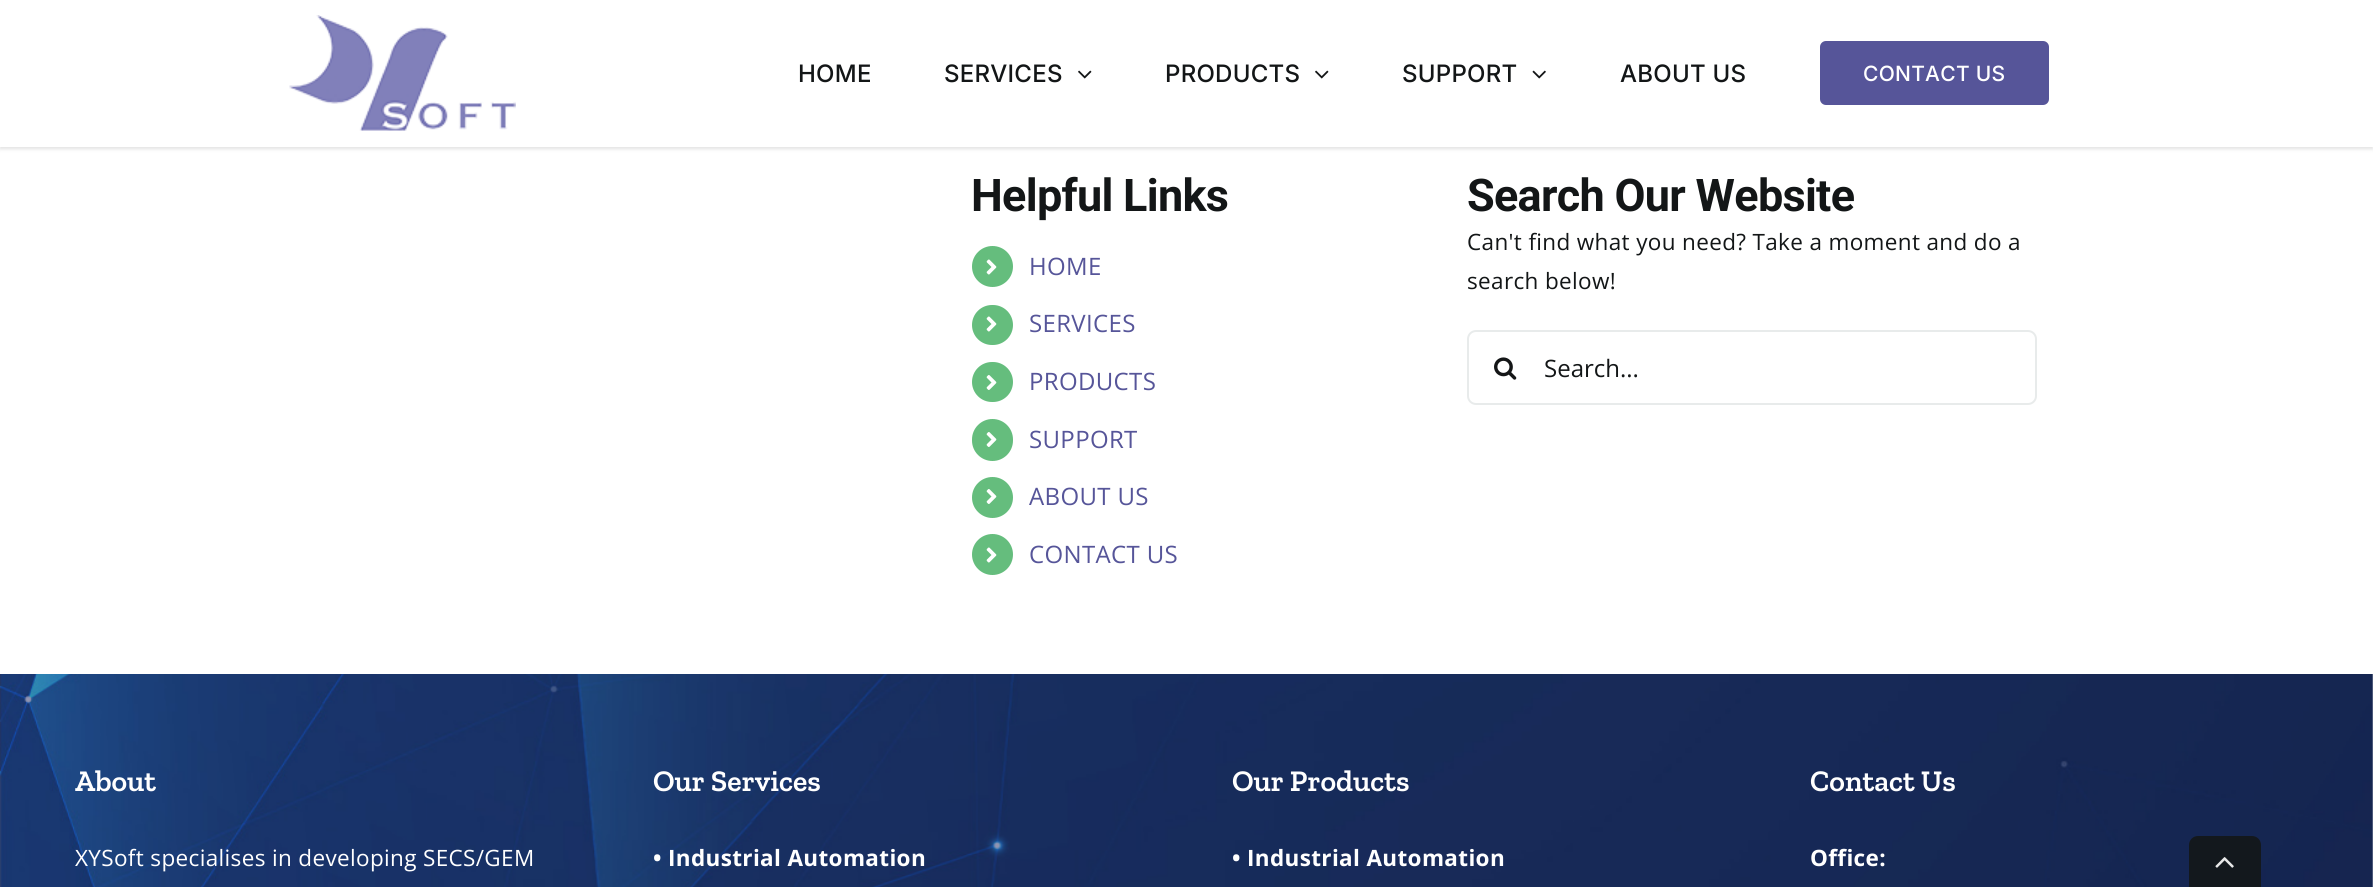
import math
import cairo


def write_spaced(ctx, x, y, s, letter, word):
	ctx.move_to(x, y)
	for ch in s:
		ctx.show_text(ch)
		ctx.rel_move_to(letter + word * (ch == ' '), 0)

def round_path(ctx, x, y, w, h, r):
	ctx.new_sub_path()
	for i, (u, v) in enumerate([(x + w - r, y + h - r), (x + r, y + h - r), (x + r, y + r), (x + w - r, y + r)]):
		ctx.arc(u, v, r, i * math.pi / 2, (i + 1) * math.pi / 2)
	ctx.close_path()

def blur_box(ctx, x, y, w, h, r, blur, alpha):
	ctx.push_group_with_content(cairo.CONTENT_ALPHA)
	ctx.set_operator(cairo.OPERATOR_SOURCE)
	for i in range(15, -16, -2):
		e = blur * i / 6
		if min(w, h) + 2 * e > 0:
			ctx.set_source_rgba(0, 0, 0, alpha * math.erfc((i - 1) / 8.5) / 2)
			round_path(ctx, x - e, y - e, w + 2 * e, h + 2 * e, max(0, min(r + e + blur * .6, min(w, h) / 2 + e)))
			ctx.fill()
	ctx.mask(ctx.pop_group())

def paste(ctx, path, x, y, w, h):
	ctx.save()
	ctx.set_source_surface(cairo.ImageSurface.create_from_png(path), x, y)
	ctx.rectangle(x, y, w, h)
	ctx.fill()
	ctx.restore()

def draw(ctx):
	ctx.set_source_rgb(1, 1, 1)
	ctx.paint()
	ctx.set_source_rgb(0, 0, 0)
	blur_box(ctx, 0, 2, 2373, 147, 0, 2, 0.12)
	ctx.set_source_rgb(1, 1, 1)
	ctx.rectangle(0, 0, 2373, 147)
	ctx.fill()
	paste(ctx, 'media/1.png', 289, 15, 227, 116)
	ctx.select_font_face('Inter Medium')
	ctx.set_font_size(24)
	ctx.set_source_rgb(0.078, 0.086, 0.09)
	write_spaced(ctx, 798, 82, 'HOME', 0.25, 0)
	write_spaced(ctx, 944, 82, 'SERVICES', 0.25, 0)
	paste(ctx, 'media/2.png', 1078, 70, 14, 9)
	write_spaced(ctx, 1165, 82, 'PRODUCTS', 0.25, 0)
	paste(ctx, 'media/2.png', 1315, 70, 14, 9)
	write_spaced(ctx, 1402, 82, 'SUPPORT', 0.25, 0)
	paste(ctx, 'media/3.png', 1532, 70, 14, 9)
	write_spaced(ctx, 1620, 82, 'ABOUT US', 0.25, 0)
	ctx.set_source_rgb(0.337, 0.333, 0.6)
	round_path(ctx, 1820, 41, 229, 64, 6)
	ctx.fill()
	ctx.set_font_size(21)
	ctx.set_source_rgb(1, 1, 1)
	write_spaced(ctx, 1863, 81, 'CONTACT US', 0.25, 0)
	ctx.select_font_face('Roboto', cairo.FONT_SLANT_NORMAL, cairo.FONT_WEIGHT_BOLD)
	ctx.set_font_size(45)
	ctx.set_source_rgb(0.078, 0.086, 0.09)
	write_spaced(ctx, 971, 211, 'Helpful Links', -0.7, 0)
	ctx.set_source_rgb(0.396, 0.741, 0.49)
	ctx.new_path()
	ctx.arc(992.5, 266.5, 20.5, 0, 2 * math.pi)
	ctx.fill()
	paste(ctx, 'media/4.png', 986, 259, 11, 16)
	ctx.select_font_face('Open Sans')
	ctx.set_font_size(24)
	ctx.set_source_rgb(0.337, 0.333, 0.6)
	write_spaced(ctx, 1029, 275, 'HOME', 0.35, 0)
	ctx.set_source_rgb(0.396, 0.741, 0.49)
	round_path(ctx, 972, 305, 41, 40, 20)
	ctx.fill()
	paste(ctx, 'media/4.png', 986, 316, 11, 16)
	ctx.set_source_rgb(0.337, 0.333, 0.6)
	write_spaced(ctx, 1029, 332, 'SERVICES', 0.35, 0)
	ctx.set_source_rgb(0.396, 0.741, 0.49)
	round_path(ctx, 972, 362, 41, 40, 20)
	ctx.fill()
	paste(ctx, 'media/5.png', 986, 375, 11, 15)
	ctx.set_source_rgb(0.337, 0.333, 0.6)
	write_spaced(ctx, 1029, 390, 'PRODUCTS', 0.35, 0)
	ctx.set_source_rgb(0.396, 0.741, 0.49)
	round_path(ctx, 972, 419, 41, 42, 20.5)
	ctx.fill()
	paste(ctx, 'media/5.png', 986, 432, 11, 15)
	ctx.set_source_rgb(0.337, 0.333, 0.6)
	write_spaced(ctx, 1029, 448, 'SUPPORT', 0.35, 0)
	ctx.set_source_rgb(0.396, 0.741, 0.49)
	ctx.new_path()
	ctx.arc(992.5, 497.5, 20.5, 0, 2 * math.pi)
	ctx.fill()
	paste(ctx, 'media/5.png', 986, 489, 11, 15)
	ctx.set_source_rgb(0.337, 0.333, 0.6)
	write_spaced(ctx, 1029, 505, 'ABOUT US', 0.35, 0)
	ctx.set_source_rgb(0.396, 0.741, 0.49)
	ctx.new_path()
	ctx.arc(992.5, 554.5, 20.5, 0, 2 * math.pi)
	ctx.fill()
	paste(ctx, 'media/4.png', 986, 547, 11, 16)
	ctx.set_source_rgb(0.337, 0.333, 0.6)
	write_spaced(ctx, 1029, 563, 'CONTACT US', 0.35, 0)
	ctx.select_font_face('Roboto', cairo.FONT_SLANT_NORMAL, cairo.FONT_WEIGHT_BOLD)
	ctx.set_font_size(45)
	ctx.set_source_rgb(0.078, 0.086, 0.09)
	write_spaced(ctx, 1467, 211, 'Search Our Website', -0.7, 0)
	ctx.select_font_face('Open Sans')
	ctx.set_font_size(22.5)
	write_spaced(ctx, 1467, 250, 'Can\'t find what you need? Take a moment and do a', 0.35, 0)
	write_spaced(ctx, 1467, 289, 'search below!', 0.35, 0)
	round_path(ctx, 1468, 331, 568, 73, 8)
	ctx.set_source_rgb(0.91, 0.918, 0.918)
	ctx.stroke()
	paste(ctx, 'media/6.png', 1494, 357, 23, 23)
	ctx.set_font_size(24)
	ctx.set_source_rgb(0.078, 0.086, 0.09)
	ctx.move_to(1544, 377)
	ctx.show_text('Search...')
	paste(ctx, 'media/7.png', 0, 674, 2373, 213)
	ctx.select_font_face('Zilla Slab SemiBold')
	ctx.set_font_size(30)
	ctx.set_source_rgb(1, 1, 1)
	ctx.move_to(75, 791)
	ctx.show_text('About')
	ctx.select_font_face('Open Sans')
	ctx.set_font_size(22.5)
	write_spaced(ctx, 75, 866, 'XYSoft specialises in developing SECS/GEM', 0.35, 0)
	ctx.select_font_face('Zilla Slab SemiBold')
	ctx.set_font_size(30)
	ctx.move_to(653, 791)
	ctx.show_text('Our Services')
	ctx.select_font_face('Open Sans', cairo.FONT_SLANT_NORMAL, cairo.FONT_WEIGHT_BOLD)
	ctx.set_font_size(22.5)
	write_spaced(ctx, 653, 866, '• Industrial Automation', 0.35, 0)
	ctx.select_font_face('Zilla Slab SemiBold')
	ctx.set_font_size(30)
	ctx.move_to(1232, 791)
	ctx.show_text('Our Products')
	ctx.select_font_face('Open Sans', cairo.FONT_SLANT_NORMAL, cairo.FONT_WEIGHT_BOLD)
	ctx.set_font_size(22.5)
	write_spaced(ctx, 1232, 866, '• Industrial Automation', 0.35, 0)
	ctx.select_font_face('Zilla Slab SemiBold')
	ctx.set_font_size(30)
	ctx.move_to(1810, 791)
	ctx.show_text('Contact Us')
	ctx.select_font_face('Open Sans', cairo.FONT_SLANT_NORMAL, cairo.FONT_WEIGHT_BOLD)
	ctx.set_font_size(22.5)
	write_spaced(ctx, 1810, 866, 'Office:', 0.35, 0)
	ctx.set_source_rgb(0.078, 0.094, 0.114)
	ctx.new_path()
	ctx.move_to(2198, 836)
	ctx.line_to(2252, 836)
	ctx.curve_to(2257, 836, 2261, 840, 2261, 845)
	ctx.line_to(2261, 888)
	ctx.line_to(2189, 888)
	ctx.line_to(2189, 845)
	ctx.curve_to(2189, 840, 2193, 836, 2198, 836)
	ctx.close_path()
	ctx.fill()
	paste(ctx, 'media/8.png', 2215, 857, 19, 11)


surface = cairo.ImageSurface(cairo.FORMAT_RGB24, 2373, 887)
ctx = cairo.Context(surface)
options = cairo.FontOptions()
options.set_hint_metrics(cairo.HINT_METRICS_OFF)
options.set_hint_style(cairo.HINT_STYLE_NONE)
ctx.set_font_options(options)
ctx.set_miter_limit(4)
draw(ctx)
surface.write_to_png('image.png')
